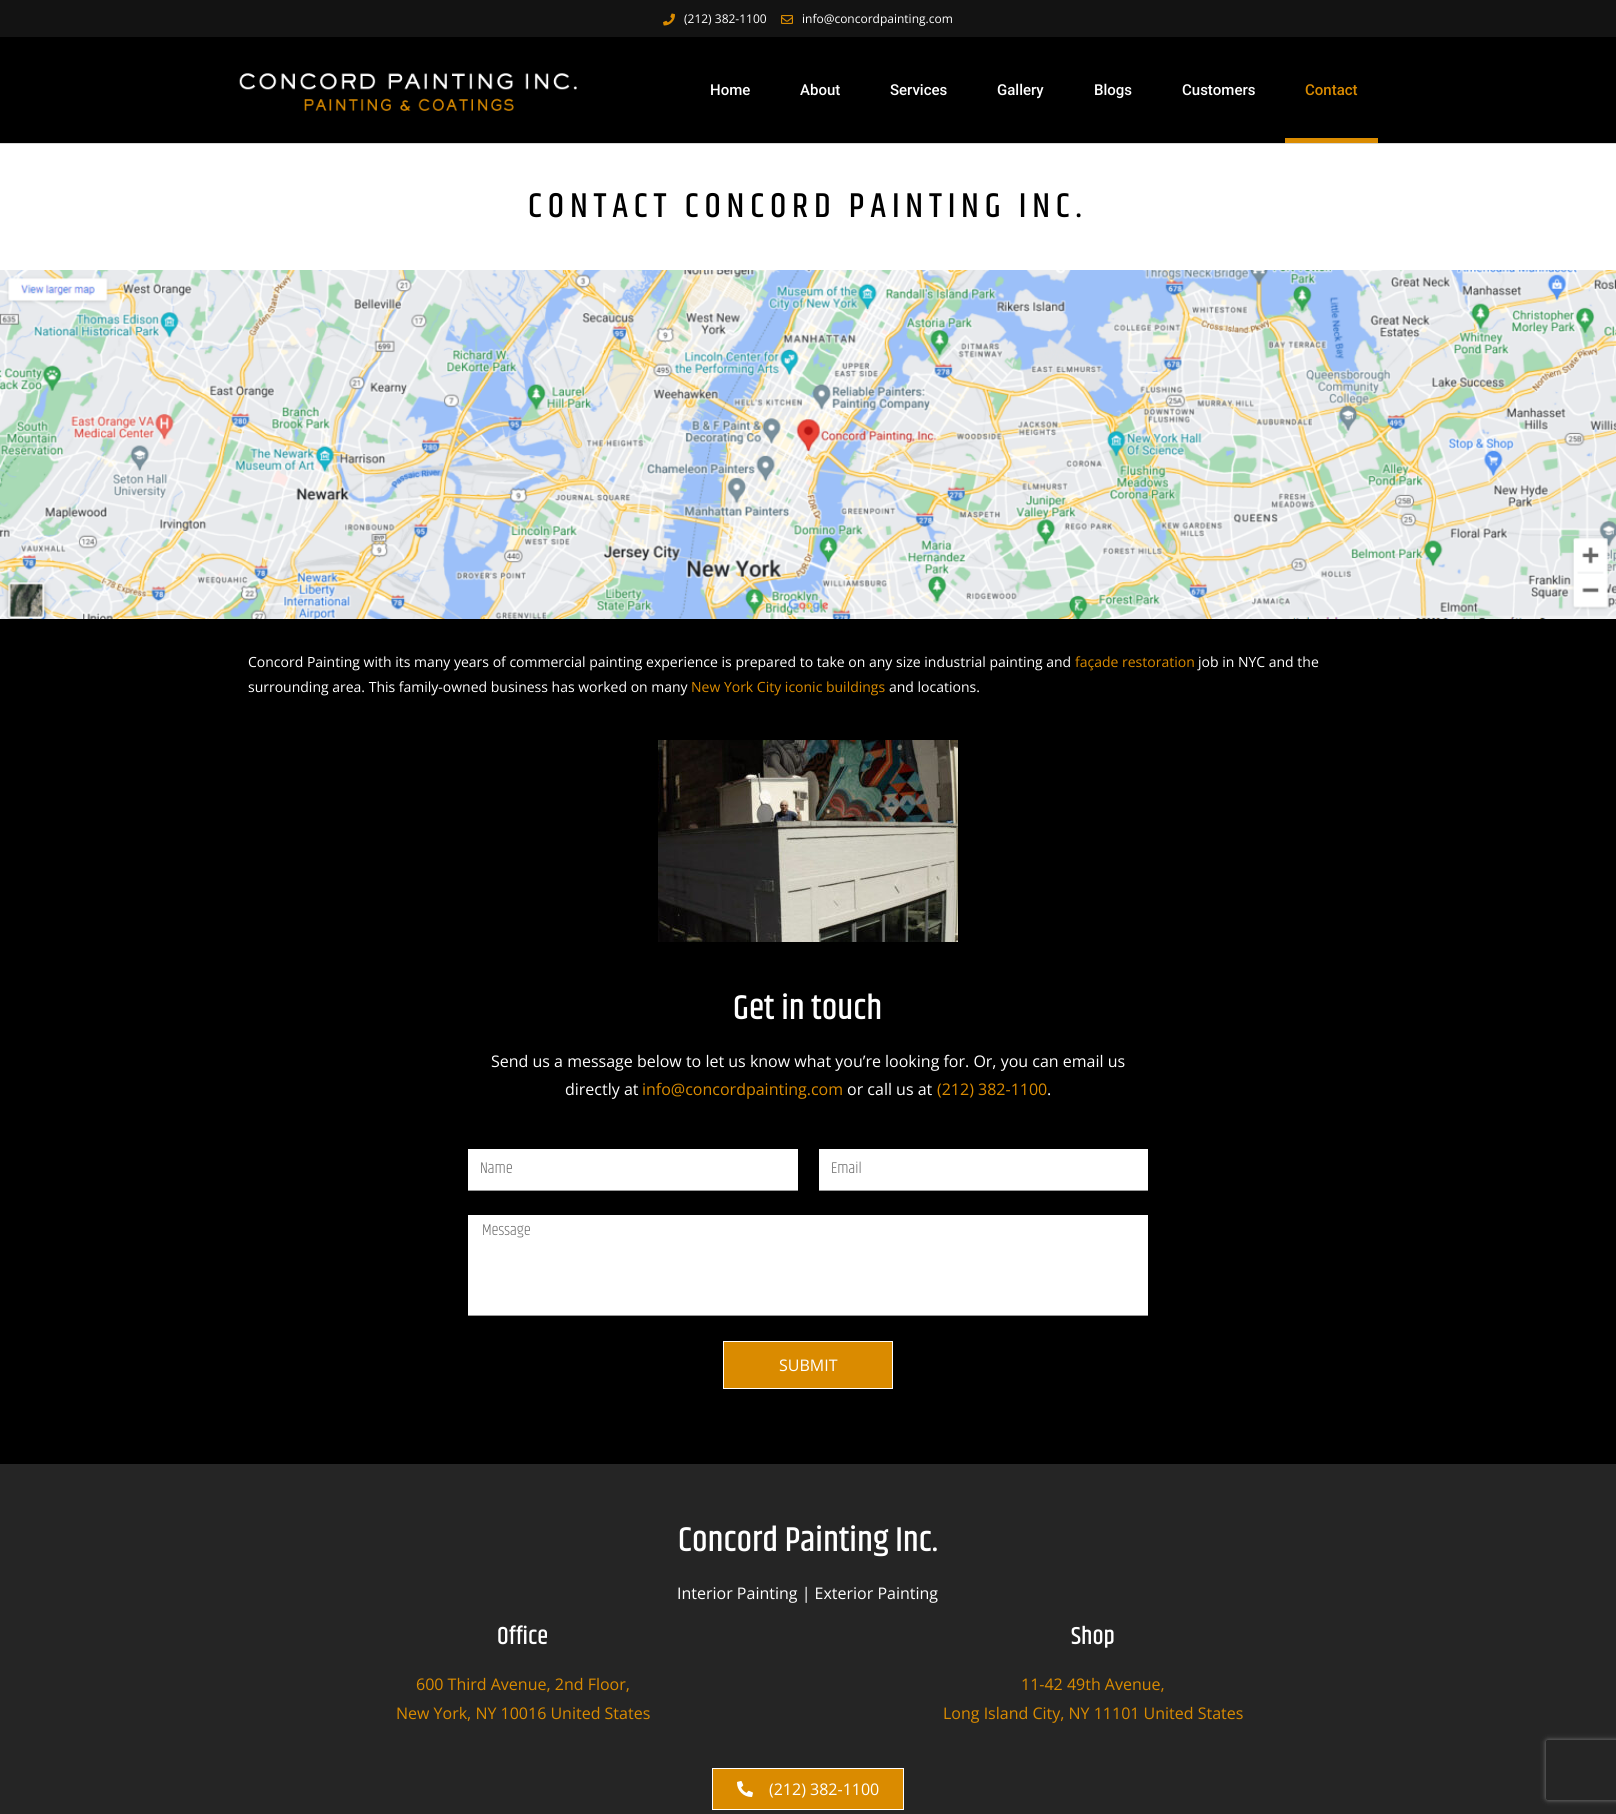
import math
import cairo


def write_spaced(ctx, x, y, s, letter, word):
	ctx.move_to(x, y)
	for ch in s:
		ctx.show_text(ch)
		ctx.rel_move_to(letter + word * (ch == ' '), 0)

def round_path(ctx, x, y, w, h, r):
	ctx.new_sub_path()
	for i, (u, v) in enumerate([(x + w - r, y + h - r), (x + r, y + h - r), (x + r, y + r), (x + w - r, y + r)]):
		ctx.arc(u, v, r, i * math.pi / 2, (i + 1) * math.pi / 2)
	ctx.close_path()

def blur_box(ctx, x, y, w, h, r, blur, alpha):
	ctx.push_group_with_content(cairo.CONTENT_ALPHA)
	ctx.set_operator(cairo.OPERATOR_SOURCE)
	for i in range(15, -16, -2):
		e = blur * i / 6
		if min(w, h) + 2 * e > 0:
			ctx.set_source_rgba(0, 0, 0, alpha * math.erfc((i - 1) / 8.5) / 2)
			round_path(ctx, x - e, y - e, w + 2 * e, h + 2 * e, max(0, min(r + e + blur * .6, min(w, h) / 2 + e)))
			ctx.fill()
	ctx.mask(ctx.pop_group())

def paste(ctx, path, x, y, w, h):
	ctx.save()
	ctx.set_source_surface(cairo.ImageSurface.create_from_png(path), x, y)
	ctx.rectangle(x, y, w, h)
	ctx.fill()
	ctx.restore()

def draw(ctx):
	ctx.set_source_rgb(0, 0, 0)
	ctx.paint()
	ctx.set_source_rgb(0.075, 0.078, 0.078)
	ctx.rectangle(0, 0, 1616, 37)
	ctx.fill()
	paste(ctx, 'media/1.png', 663, 13, 12, 13)
	ctx.select_font_face('Open Sans')
	ctx.set_font_size(12)
	ctx.set_source_rgb(1, 1, 1)
	ctx.move_to(684, 23)
	ctx.show_text('(212) 382-1100')
	paste(ctx, 'media/2.png', 781, 15, 12, 9)
	ctx.move_to(802, 23)
	ctx.show_text('info@concordpainting.com')
	ctx.set_source_rgb(0.847, 0.847, 0.847)
	ctx.rectangle(0, 143, 1616, 1)
	ctx.fill()
	paste(ctx, 'media/3.png', 239, 73, 338, 38)
	ctx.select_font_face('Roboto Medium')
	ctx.set_font_size(15)
	ctx.set_source_rgb(1, 1, 1)
	for x, y, s in [
		(710, 95, 'Home'),
		(800, 95, 'About'),
		(890, 95, 'Services'),
		(997, 95, 'Gallery'),
		(1094, 95, 'Blogs'),
		(1182, 95, 'Customers'),
	]:
		ctx.move_to(x, y)
		ctx.show_text(s)
	ctx.set_source_rgb(0.855, 0.545, 0)
	ctx.move_to(1305, 95)
	ctx.show_text('Contact')
	ctx.rectangle(1285, 138, 93, 5)
	ctx.fill()
	ctx.set_source_rgb(1, 1, 1)
	ctx.rectangle(0, 144, 1616, 126)
	ctx.fill()
	ctx.select_font_face('Khand Medium')
	ctx.set_font_size(35)
	ctx.set_source_rgb(0, 0, 0)
	write_spaced(ctx, 528, 217, 'CONTACT CONCORD PAINTING INC.', 5.8, 0)
	paste(ctx, 'media/4.png', 0, 270, 1616, 349)
	ctx.select_font_face('Open Sans')
	ctx.set_font_size(14)
	ctx.set_source_rgb(1, 1, 1)
	ctx.move_to(248, 667)
	ctx.show_text('Concord Painting with its many years of commercial painting experience is prepared to take on any size industrial painting and')
	ctx.set_source_rgb(0.855, 0.545, 0)
	ctx.move_to(1075, 667)
	ctx.show_text('façade restoration')
	ctx.set_source_rgb(1, 1, 1)
	ctx.move_to(1198, 667)
	ctx.show_text('job in NYC and the')
	ctx.move_to(248, 692)
	ctx.show_text('surrounding area. This family-owned business has worked on many')
	ctx.set_source_rgb(0.855, 0.545, 0)
	ctx.move_to(691, 692)
	ctx.show_text('New York City iconic buildings')
	ctx.set_source_rgb(1, 1, 1)
	ctx.move_to(889, 692)
	ctx.show_text('and locations.')
	paste(ctx, 'media/5.png', 658, 740, 300, 202)
	ctx.select_font_face('Khand Medium')
	ctx.set_font_size(35)
	ctx.move_to(733, 1019)
	ctx.show_text('Get in touch')
	ctx.select_font_face('Open Sans')
	ctx.set_font_size(16)
	ctx.move_to(491, 1067)
	ctx.show_text('Send us a message below to let us know what you’re looking for. Or, you can email us')
	ctx.move_to(565, 1095)
	ctx.show_text('directly at')
	ctx.set_source_rgb(0.855, 0.545, 0)
	ctx.move_to(642, 1095)
	ctx.show_text('info@concordpainting.com')
	ctx.set_source_rgb(1, 1, 1)
	ctx.move_to(847, 1095)
	ctx.show_text('or call us at')
	ctx.set_source_rgb(0.855, 0.545, 0)
	ctx.move_to(937, 1095)
	ctx.show_text('(212) 382-1100')
	ctx.set_source_rgb(1, 1, 1)
	ctx.move_to(1047, 1095)
	ctx.show_text('.')
	ctx.rectangle(468, 1149, 330, 41)
	ctx.fill()
	ctx.set_source_rgb(0.6, 0.6, 0.6)
	ctx.rectangle(468, 1190, 330, 1)
	ctx.fill()
	ctx.select_font_face('Khand Light')
	ctx.set_source_rgb(0.4, 0.4, 0.4)
	ctx.move_to(480, 1173)
	ctx.show_text('Name')
	ctx.set_source_rgb(1, 1, 1)
	ctx.rectangle(819, 1149, 329, 41)
	ctx.fill()
	ctx.set_source_rgb(0.6, 0.6, 0.6)
	ctx.rectangle(819, 1190, 329, 1)
	ctx.fill()
	ctx.set_source_rgb(0.4, 0.4, 0.4)
	ctx.move_to(831, 1173)
	ctx.show_text('Email')
	ctx.set_source_rgb(1, 1, 1)
	ctx.rectangle(468, 1215, 680, 100)
	ctx.fill()
	ctx.set_source_rgb(0.6, 0.6, 0.6)
	ctx.rectangle(468, 1315, 680, 1)
	ctx.fill()
	ctx.set_source_rgb(0.4, 0.4, 0.4)
	ctx.move_to(482, 1235)
	ctx.show_text('Message')
	ctx.set_source_rgb(0.855, 0.545, 0)
	ctx.rectangle(723.5, 1341.5, 169, 47)
	ctx.fill_preserve()
	ctx.set_source_rgb(1, 1, 1)
	ctx.set_line_width(1)
	ctx.stroke()
	ctx.select_font_face('Open Sans')
	ctx.move_to(779, 1371)
	ctx.show_text('SUBMIT')
	ctx.set_source_rgb(0.145, 0.145, 0.145)
	ctx.rectangle(0, 1464, 1616, 350)
	ctx.fill()
	ctx.save()
	ctx.set_fill_rule(cairo.FILL_RULE_EVEN_ODD)
	ctx.new_path()
	ctx.move_to(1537, 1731)
	ctx.line_to(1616, 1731)
	ctx.line_to(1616, 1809)
	ctx.line_to(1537, 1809)
	ctx.close_path()
	ctx.move_to(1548, 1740)
	ctx.line_to(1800, 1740)
	ctx.curve_to(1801, 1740, 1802, 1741, 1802, 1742)
	ctx.line_to(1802, 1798)
	ctx.curve_to(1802, 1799, 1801, 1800, 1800, 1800)
	ctx.line_to(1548, 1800)
	ctx.curve_to(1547, 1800, 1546, 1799, 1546, 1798)
	ctx.line_to(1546, 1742)
	ctx.curve_to(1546, 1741, 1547, 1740, 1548, 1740)
	ctx.close_path()
	ctx.clip()
	ctx.set_source_rgb(0.502, 0.502, 0.502)
	blur_box(ctx, 1546, 1740, 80, 60, 2, 2.5, 1)
	ctx.restore()
	ctx.select_font_face('Khand Medium')
	ctx.set_font_size(35)
	ctx.set_source_rgb(1, 1, 1)
	ctx.move_to(678, 1551)
	ctx.show_text('Concord Painting Inc.')
	ctx.select_font_face('Open Sans')
	ctx.set_font_size(16)
	ctx.move_to(677, 1599)
	ctx.show_text('Interior Painting | Exterior Painting')
	ctx.select_font_face('Khand Medium')
	ctx.set_font_size(25)
	ctx.move_to(497, 1644)
	ctx.show_text('Office')
	ctx.select_font_face('Open Sans')
	ctx.set_font_size(16)
	ctx.set_source_rgb(0.855, 0.545, 0)
	ctx.move_to(416, 1690)
	ctx.show_text('600 Third Avenue, 2nd Floor,')
	ctx.move_to(396, 1719)
	ctx.show_text('New York, NY 10016 United States')
	ctx.select_font_face('Khand Medium')
	ctx.set_font_size(25)
	ctx.set_source_rgb(1, 1, 1)
	ctx.move_to(1071, 1644)
	ctx.show_text('Shop')
	ctx.select_font_face('Open Sans')
	ctx.set_font_size(16)
	ctx.set_source_rgb(0.855, 0.545, 0)
	ctx.move_to(1021, 1690)
	ctx.show_text('11-42 49th Avenue,')
	ctx.move_to(943, 1719)
	ctx.show_text('Long Island City, NY 11101 United States')
	ctx.rectangle(712.5, 1768.5, 191, 41)
	ctx.fill_preserve()
	ctx.set_source_rgb(1, 1, 1)
	ctx.stroke()
	paste(ctx, 'media/6.png', 737, 1781, 16, 16)
	ctx.move_to(769, 1795)
	ctx.show_text('(212) 382-1100')


surface = cairo.ImageSurface(cairo.FORMAT_RGB24, 1616, 1814)
ctx = cairo.Context(surface)
options = cairo.FontOptions()
options.set_hint_metrics(cairo.HINT_METRICS_OFF)
options.set_hint_style(cairo.HINT_STYLE_NONE)
ctx.set_font_options(options)
ctx.set_miter_limit(4)
draw(ctx)
surface.write_to_png('image.png')
